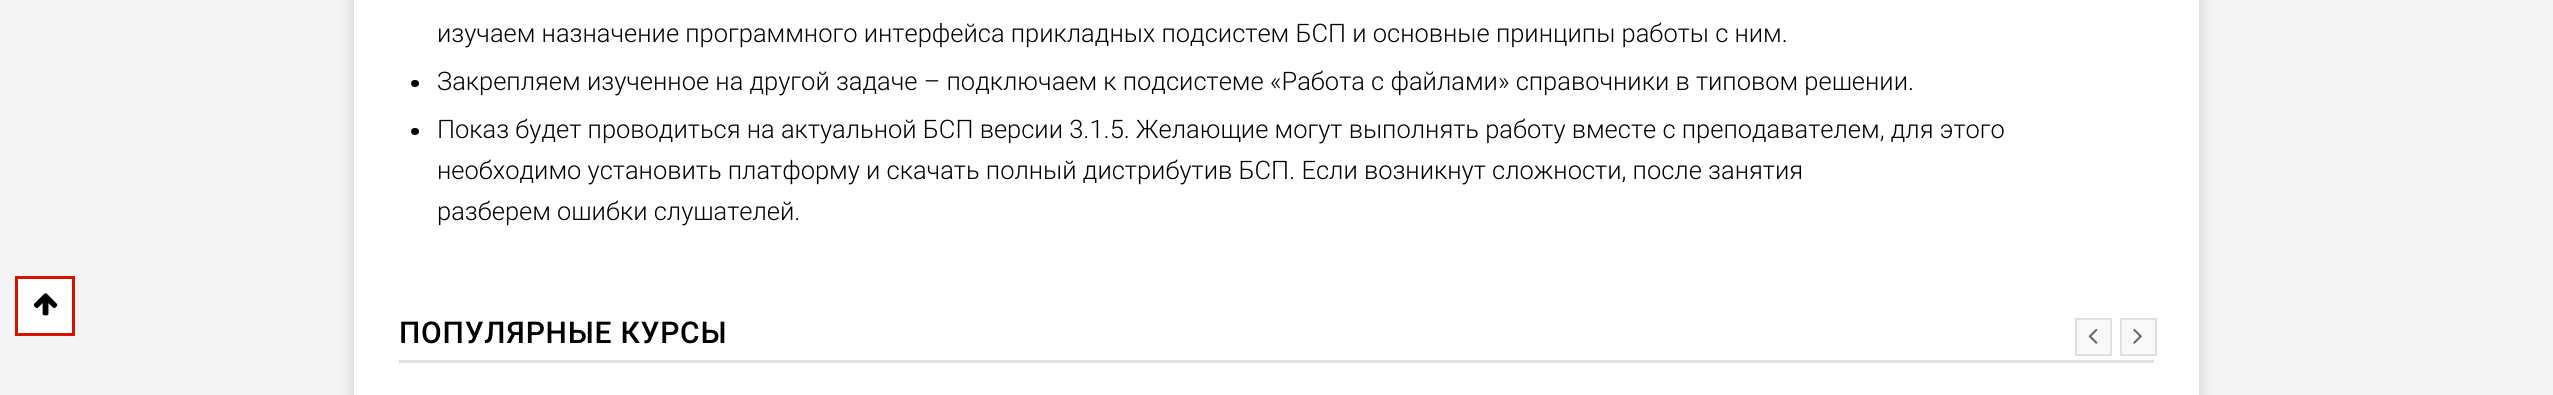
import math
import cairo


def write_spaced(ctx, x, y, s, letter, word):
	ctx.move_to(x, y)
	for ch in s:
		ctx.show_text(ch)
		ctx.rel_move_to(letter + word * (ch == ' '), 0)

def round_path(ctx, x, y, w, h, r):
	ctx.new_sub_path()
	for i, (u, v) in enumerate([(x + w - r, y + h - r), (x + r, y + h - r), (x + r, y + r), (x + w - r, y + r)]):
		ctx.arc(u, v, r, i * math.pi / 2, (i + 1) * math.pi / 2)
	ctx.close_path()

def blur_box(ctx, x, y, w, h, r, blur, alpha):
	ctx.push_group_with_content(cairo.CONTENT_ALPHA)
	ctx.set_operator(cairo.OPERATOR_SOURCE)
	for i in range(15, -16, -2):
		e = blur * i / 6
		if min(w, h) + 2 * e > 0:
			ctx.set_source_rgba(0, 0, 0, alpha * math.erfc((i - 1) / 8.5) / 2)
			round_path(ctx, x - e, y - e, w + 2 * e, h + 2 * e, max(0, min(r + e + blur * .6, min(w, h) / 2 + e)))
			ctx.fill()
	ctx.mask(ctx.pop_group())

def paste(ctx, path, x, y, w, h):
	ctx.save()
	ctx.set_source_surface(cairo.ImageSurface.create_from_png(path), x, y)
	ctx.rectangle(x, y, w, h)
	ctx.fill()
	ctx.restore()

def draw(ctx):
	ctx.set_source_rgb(0.957, 0.957, 0.957)
	ctx.paint()
	ctx.set_source_rgb(1, 1, 1)
	ctx.rectangle(16.5, 277.5, 57, 57)
	ctx.fill_preserve()
	ctx.set_source_rgb(0.835, 0.075, 0)
	ctx.set_line_width(3)
	ctx.stroke()
	paste(ctx, 'media/1.png', 33, 293, 25, 23)
	ctx.set_source_rgb(0, 0, 0)
	blur_box(ctx, 354, -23, 1845, 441, 0, 7.5, 0.17)
	ctx.set_source_rgb(1, 1, 1)
	ctx.rectangle(354, 0, 1845, 395)
	ctx.fill()
	ctx.select_font_face('Roboto Light')
	ctx.set_font_size(25.5)
	ctx.set_source_rgb(0, 0, 0)
	ctx.move_to(437, 42)
	ctx.show_text('изучаем назначение программного интерфейса прикладных подсистем БСП и основные принципы работы с ним.')
	round_path(ctx, 411, 80, 8, 7, 3.5)
	ctx.fill()
	ctx.move_to(437, 90)
	ctx.show_text('Закрепляем изученное на другой задаче – подключаем к подсистеме «Работа с файлами» справочники в типовом решении.')
	round_path(ctx, 411, 128, 8, 7, 3.5)
	ctx.fill()
	for x, y, s in [
		(437, 138, 'Показ будет проводиться на актуальной БСП версии 3.1.5. Желающие могут выполнять работу вместе с преподавателем, для этого'),
		(437, 179, 'необходимо установить платформу и скачать полный дистрибутив БСП. Если возникнут сложности, после занятия'),
		(437, 220, 'разберем ошибки слушателей.'),
	]:
		ctx.move_to(x, y)
		ctx.show_text(s)
	ctx.set_source_rgb(0.878, 0.878, 0.878)
	ctx.rectangle(399, 360, 1755, 3)
	ctx.fill()
	ctx.select_font_face('Roboto Medium')
	ctx.set_font_size(30)
	ctx.set_source_rgb(0, 0, 0)
	write_spaced(ctx, 399, 343, 'ПОПУЛЯРНЫЕ КУРСЫ', 0.75, 0)
	ctx.set_source_rgb(0.973, 0.973, 0.973)
	ctx.rectangle(2076, 319, 35, 36)
	ctx.fill_preserve()
	ctx.set_source_rgb(0.878, 0.878, 0.878)
	ctx.set_line_width(2)
	ctx.stroke()
	paste(ctx, 'media/2.png', 2088, 328, 10, 16)
	ctx.set_source_rgb(0.973, 0.973, 0.973)
	ctx.rectangle(2121, 319, 35, 36)
	ctx.fill_preserve()
	ctx.set_source_rgb(0.878, 0.878, 0.878)
	ctx.stroke()
	paste(ctx, 'media/3.png', 2133, 328, 9, 16)


surface = cairo.ImageSurface(cairo.FORMAT_RGB24, 2553, 395)
ctx = cairo.Context(surface)
options = cairo.FontOptions()
options.set_hint_metrics(cairo.HINT_METRICS_OFF)
options.set_hint_style(cairo.HINT_STYLE_NONE)
ctx.set_font_options(options)
ctx.set_miter_limit(4)
draw(ctx)
surface.write_to_png('image.png')
